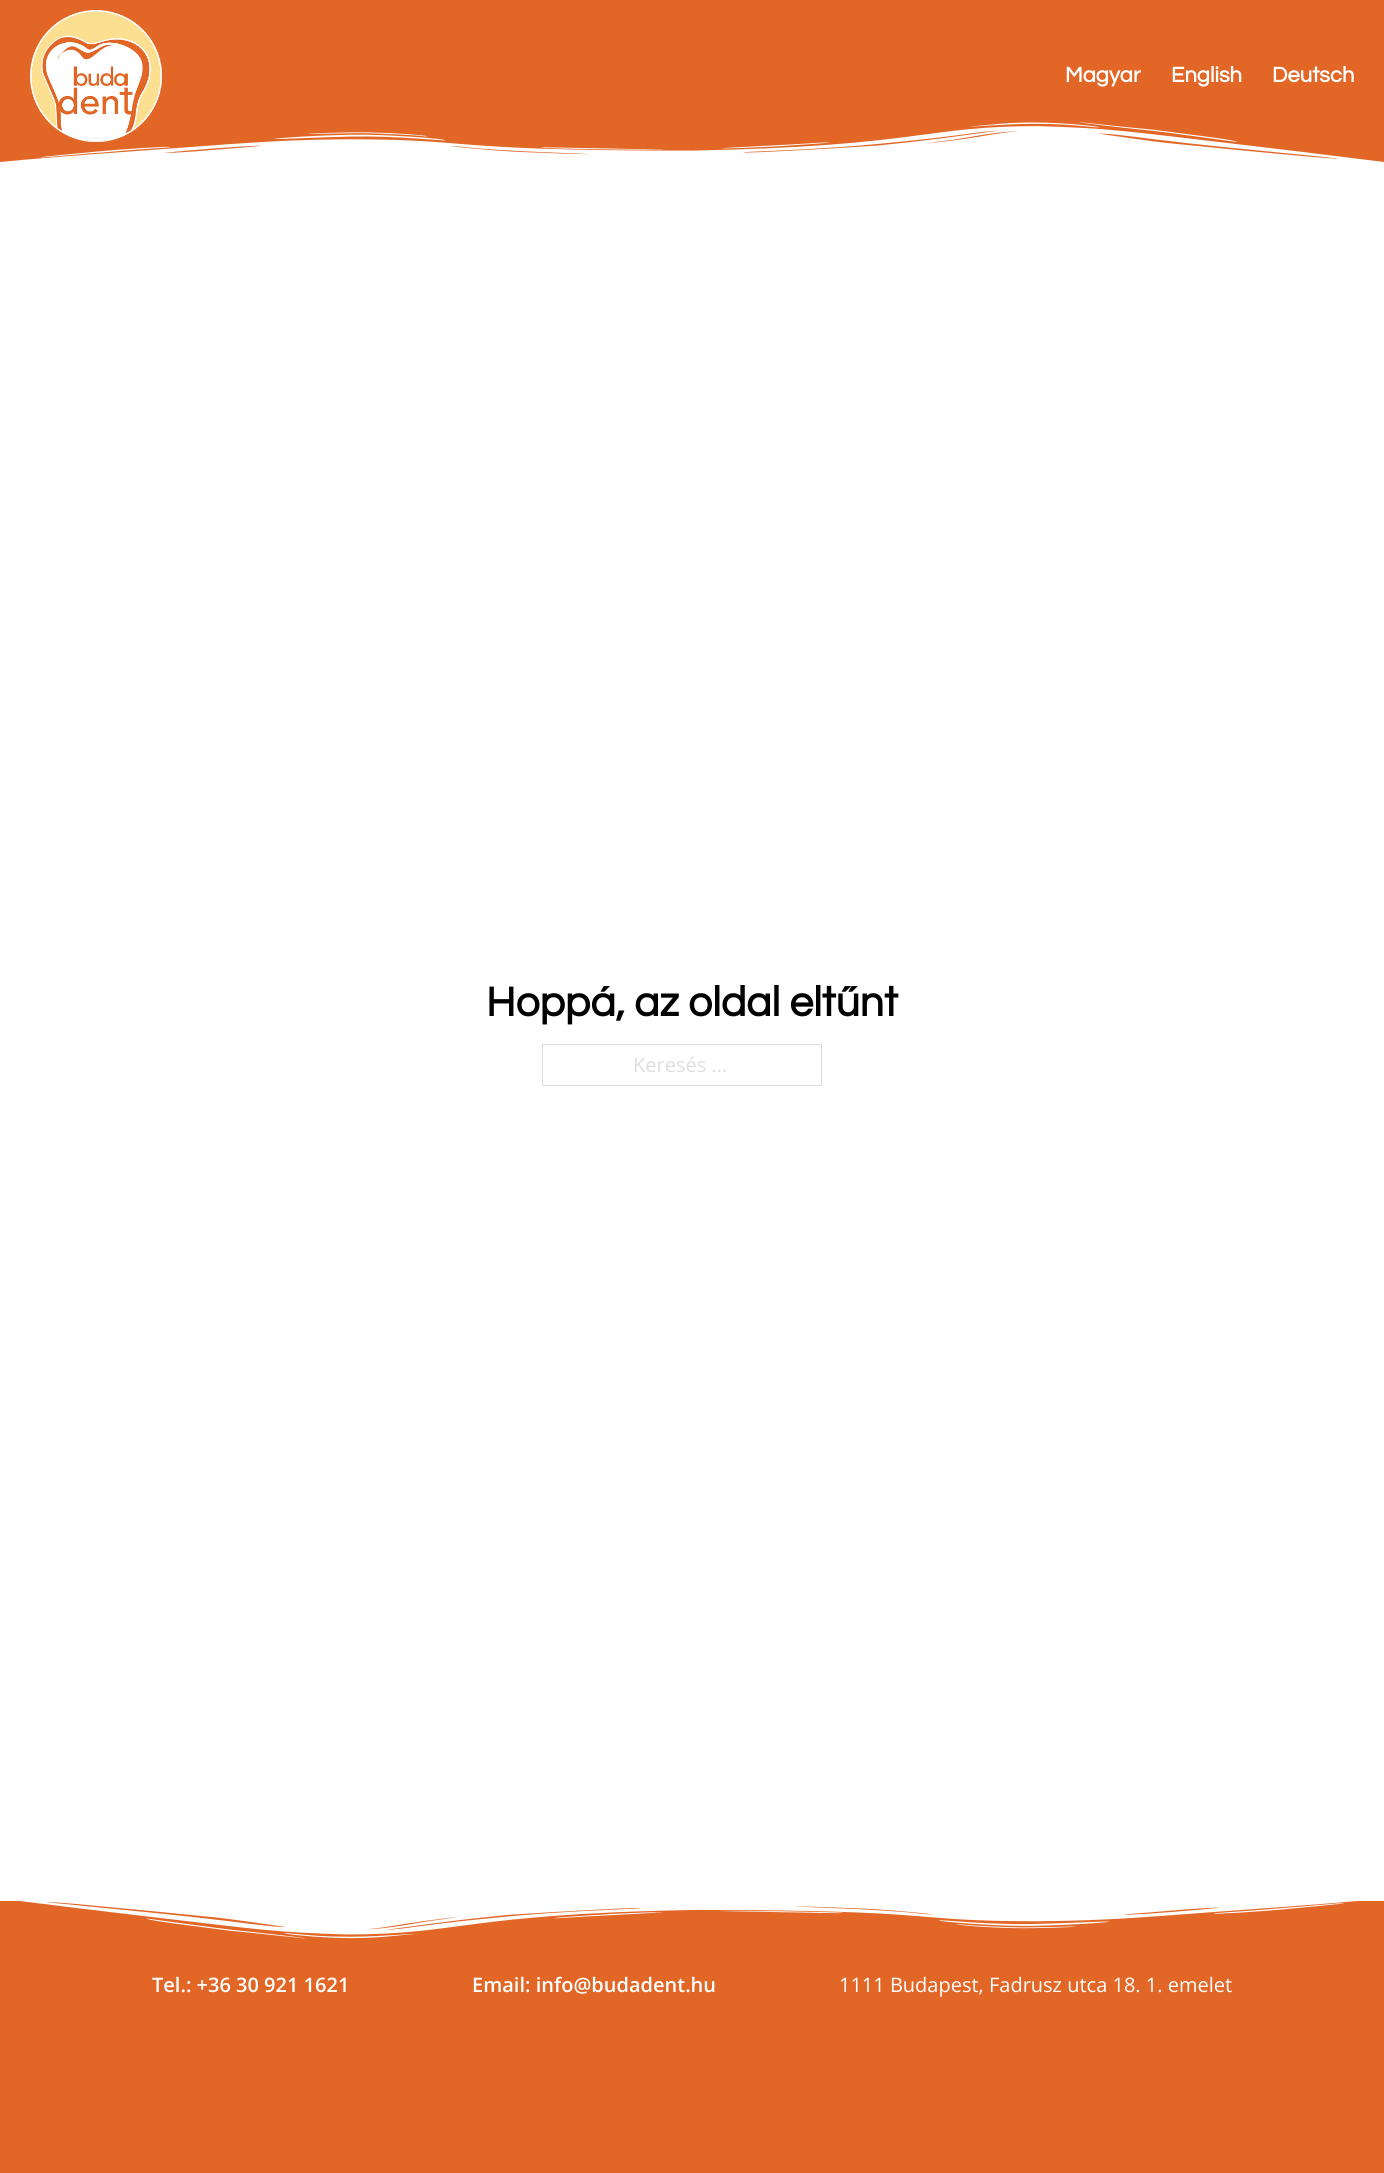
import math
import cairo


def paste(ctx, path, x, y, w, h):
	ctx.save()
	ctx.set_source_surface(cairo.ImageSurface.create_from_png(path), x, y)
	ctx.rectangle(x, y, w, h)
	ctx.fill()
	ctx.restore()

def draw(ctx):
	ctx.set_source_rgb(1, 1, 1)
	ctx.paint()
	ctx.set_source_rgb(0.886, 0.404, 0.153)
	ctx.rectangle(0, 0, 1384, 162)
	ctx.fill()
	paste(ctx, 'media/2.png', 0, 122, 1384, 40)
	paste(ctx, 'media/1.png', 30, 10, 132, 132)
	ctx.select_font_face('Questrial', cairo.FONT_SLANT_NORMAL, cairo.FONT_WEIGHT_BOLD)
	ctx.set_font_size(22)
	ctx.set_source_rgb(1, 1, 1)
	for x, y, s in [
		(1065, 82, 'Magyar'),
		(1171, 82, 'English'),
		(1272, 82, 'Deutsch'),
	]:
		ctx.move_to(x, y)
		ctx.show_text(s)
	ctx.set_font_size(42.6)
	ctx.set_source_rgb(0, 0, 0)
	ctx.move_to(486, 1016)
	ctx.show_text('Hoppá, az oldal eltűnt')
	ctx.rectangle(542.5, 1044.5, 279, 41)
	ctx.set_source_rgb(0.867, 0.871, 0.875)
	ctx.set_line_width(1)
	ctx.stroke()
	ctx.select_font_face('Open Sans')
	ctx.set_font_size(20)
	ctx.move_to(633, 1072)
	ctx.show_text('Keresés ...')
	ctx.set_source_rgb(0.886, 0.404, 0.153)
	ctx.rectangle(0, 1901, 1384, 272)
	ctx.fill()
	paste(ctx, 'media/3.png', 20, 1901, 1337, 38)
	ctx.select_font_face('Open Sans SemiBold')
	ctx.set_source_rgb(1, 1, 1)
	ctx.move_to(152, 1992)
	ctx.show_text('Tel.: +36 30 921 1621')
	ctx.move_to(472, 1992)
	ctx.show_text('Email: info@budadent.hu')
	ctx.select_font_face('Open Sans')
	ctx.move_to(839, 1992)
	ctx.show_text('1111 Budapest, Fadrusz utca 18. 1. emelet')


surface = cairo.ImageSurface(cairo.FORMAT_RGB24, 1384, 2173)
ctx = cairo.Context(surface)
options = cairo.FontOptions()
options.set_hint_metrics(cairo.HINT_METRICS_OFF)
options.set_hint_style(cairo.HINT_STYLE_NONE)
ctx.set_font_options(options)
ctx.set_miter_limit(4)
draw(ctx)
surface.write_to_png('image.png')
